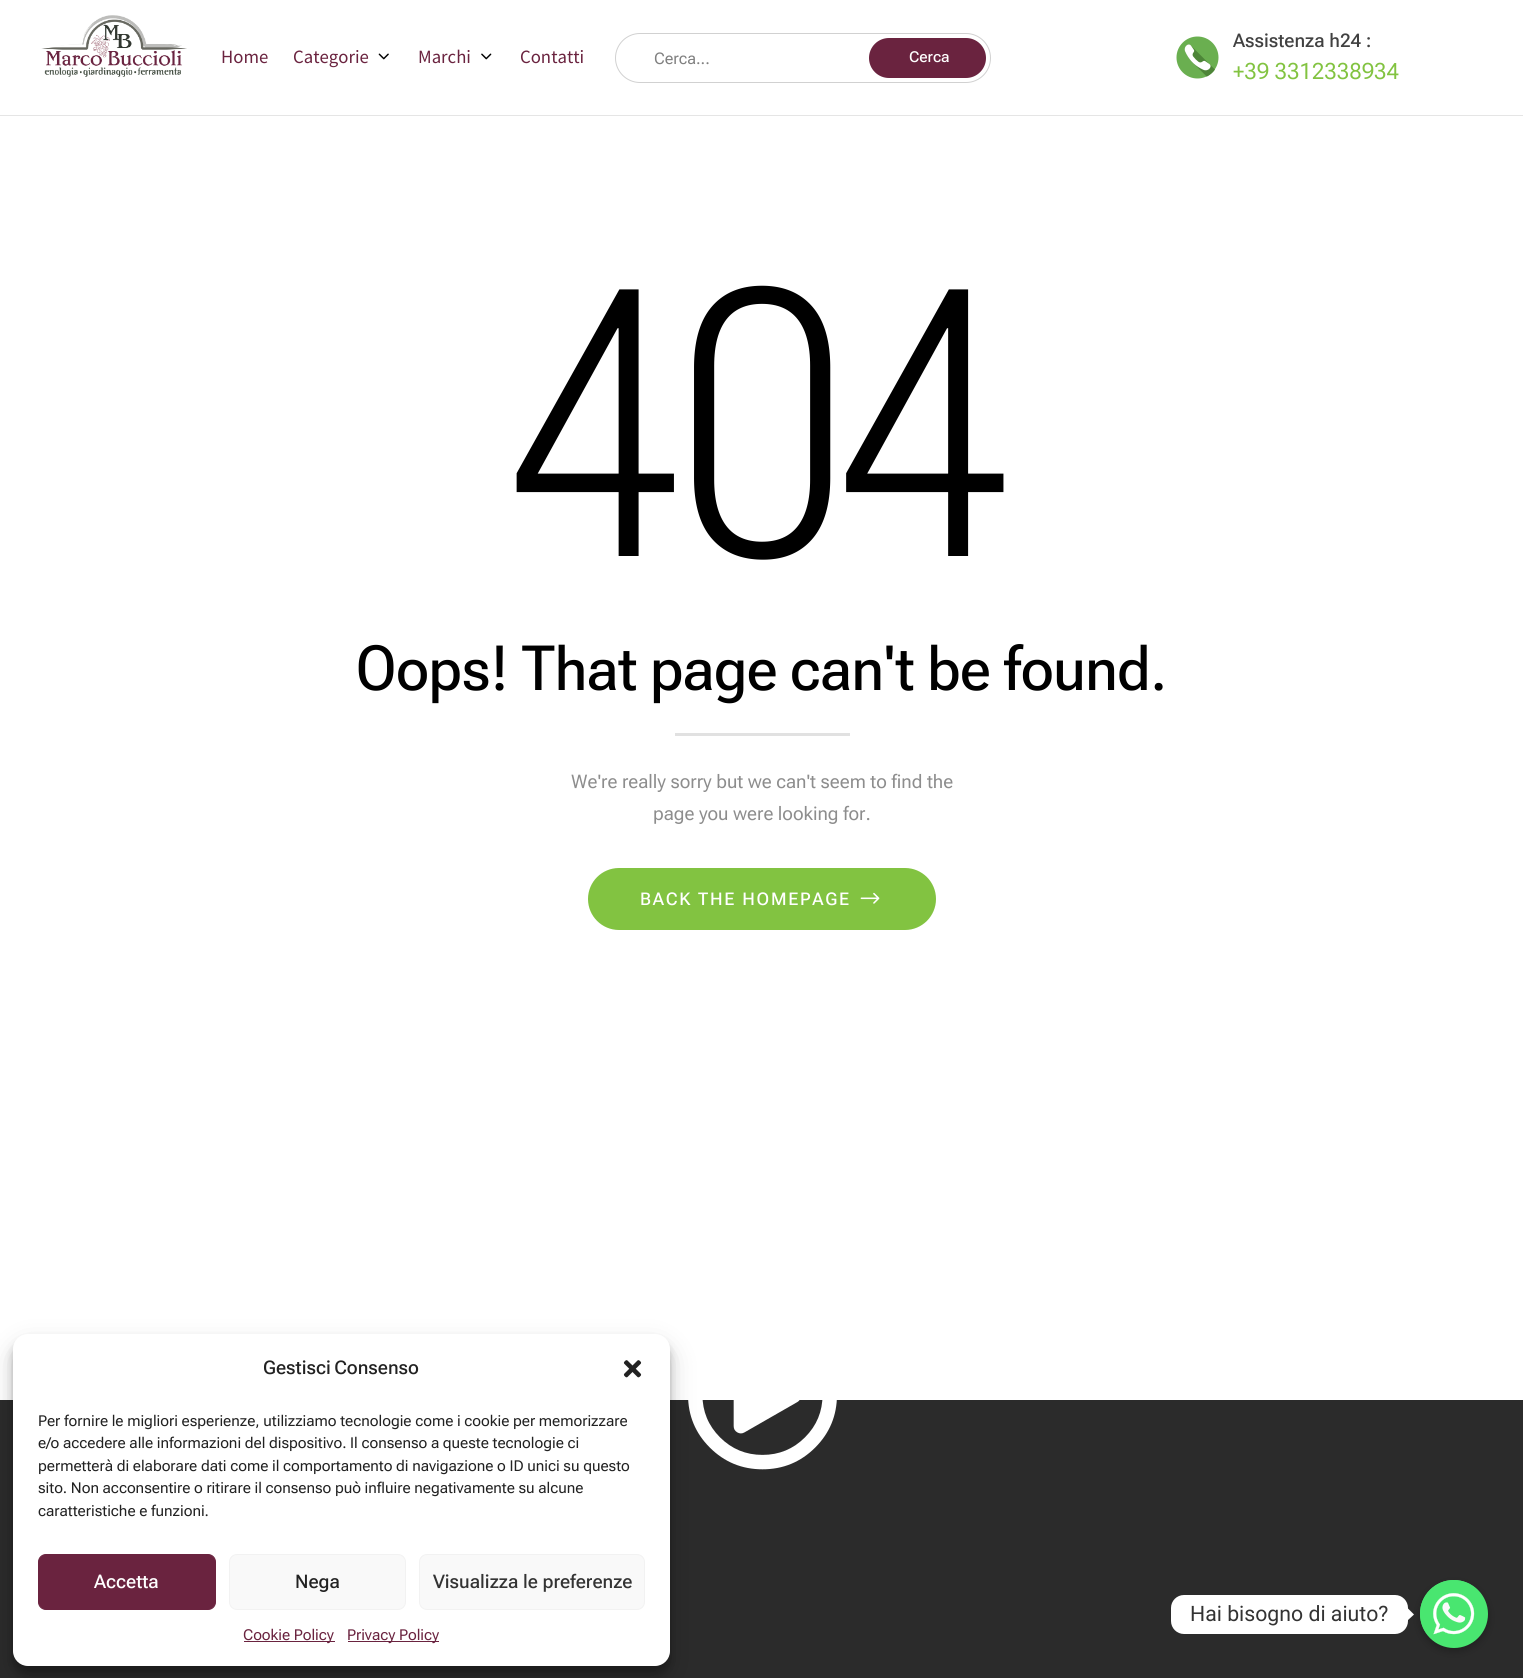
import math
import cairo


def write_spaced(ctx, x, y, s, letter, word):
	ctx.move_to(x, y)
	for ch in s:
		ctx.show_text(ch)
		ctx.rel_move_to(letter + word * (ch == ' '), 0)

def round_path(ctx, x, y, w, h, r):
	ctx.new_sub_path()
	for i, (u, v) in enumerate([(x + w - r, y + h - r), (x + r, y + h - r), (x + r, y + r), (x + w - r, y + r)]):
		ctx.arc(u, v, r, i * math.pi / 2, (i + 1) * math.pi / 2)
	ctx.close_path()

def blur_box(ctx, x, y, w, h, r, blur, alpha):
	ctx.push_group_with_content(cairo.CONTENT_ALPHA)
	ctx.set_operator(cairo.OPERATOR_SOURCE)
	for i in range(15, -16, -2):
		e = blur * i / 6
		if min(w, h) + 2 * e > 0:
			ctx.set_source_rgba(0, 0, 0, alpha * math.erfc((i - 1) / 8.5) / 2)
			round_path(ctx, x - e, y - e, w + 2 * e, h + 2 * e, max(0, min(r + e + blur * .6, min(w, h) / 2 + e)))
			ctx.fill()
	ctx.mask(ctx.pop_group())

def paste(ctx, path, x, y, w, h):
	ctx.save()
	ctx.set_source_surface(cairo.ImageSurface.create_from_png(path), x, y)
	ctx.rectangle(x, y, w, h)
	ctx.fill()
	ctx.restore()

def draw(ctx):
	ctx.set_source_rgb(1, 1, 1)
	ctx.paint()
	ctx.set_source_rgb(0.898, 0.898, 0.898)
	ctx.rectangle(0, 115, 1523, 1)
	ctx.fill()
	paste(ctx, 'media/1.png', 41, 15, 146, 62)
	ctx.select_font_face('Source Sans Pro')
	ctx.set_font_size(18.75)
	ctx.set_source_rgb(0.416, 0.137, 0.247)
	ctx.move_to(221, 63)
	ctx.show_text('Home')
	ctx.move_to(293, 63)
	ctx.show_text('Categorie')
	paste(ctx, 'media/2.png', 378, 53, 11, 7)
	ctx.move_to(418, 63)
	ctx.show_text('Marchi')
	paste(ctx, 'media/3.png', 481, 53, 11, 7)
	ctx.move_to(520, 63)
	ctx.show_text('Contatti')
	round_path(ctx, 615.5, 33.5, 375, 49, 24.5)
	ctx.set_source_rgb(0.82, 0.82, 0.82)
	ctx.set_line_width(1)
	ctx.stroke()
	ctx.select_font_face('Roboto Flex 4')
	ctx.set_font_size(16)
	ctx.set_source_rgb(0.502, 0.502, 0.502)
	ctx.move_to(654, 64)
	ctx.show_text('Cerca...')
	ctx.set_source_rgb(0.416, 0.137, 0.247)
	round_path(ctx, 869, 38, 117, 40, 20)
	ctx.fill()
	ctx.select_font_face('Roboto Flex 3 Medium')
	ctx.set_font_size(15)
	ctx.set_source_rgb(1, 1, 1)
	ctx.move_to(909, 62)
	ctx.show_text('Cerca')
	ctx.select_font_face('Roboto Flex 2 Medium')
	ctx.set_font_size(18.75)
	ctx.set_source_rgb(0.255, 0.255, 0.255)
	ctx.move_to(1233, 47)
	ctx.show_text('Assistenza h24 :')
	paste(ctx, 'media/4.png', 1176, 36, 43, 43)
	ctx.select_font_face('Roboto Flex 3')
	ctx.set_font_size(22.5)
	ctx.set_source_rgb(0.51, 0.765, 0.255)
	ctx.move_to(1233, 79)
	ctx.show_text('+39 3312338934')
	ctx.select_font_face('Roboto Flex')
	ctx.set_font_size(375)
	ctx.set_source_rgb(0, 0, 0)
	ctx.move_to(515, 556)
	ctx.show_text('404')
	ctx.select_font_face('Roboto Flex Medium')
	ctx.set_font_size(62.5)
	ctx.move_to(356, 690)
	ctx.show_text('Oops! That page can\'t be found.')
	ctx.set_source_rgb(0.882, 0.882, 0.882)
	ctx.rectangle(675, 733, 175, 3)
	ctx.fill()
	ctx.select_font_face('Roboto Flex 2')
	ctx.set_font_size(18.75)
	ctx.set_source_rgb(0.553, 0.553, 0.553)
	ctx.move_to(571, 788)
	ctx.show_text('We\'re really sorry but we can\'t seem to find the')
	ctx.move_to(653, 820)
	ctx.show_text('page you were looking for.')
	ctx.set_source_rgb(0.51, 0.765, 0.255)
	round_path(ctx, 589.5, 869.5, 345, 59, 29.5)
	ctx.fill_preserve()
	ctx.set_line_width(3)
	ctx.stroke()
	ctx.select_font_face('Roboto Flex 2 Medium')
	ctx.set_font_size(17.5)
	ctx.set_source_rgb(1, 1, 1)
	write_spaced(ctx, 640, 905, 'BACK THE HOMEPAGE', 1.75, 0)
	paste(ctx, 'media/5.png', 860, 892, 20, 12)
	ctx.set_source_rgb(0.169, 0.169, 0.169)
	ctx.rectangle(0, 1400, 1523, 278)
	ctx.fill()
	paste(ctx, 'media/6.png', 688, 1400, 149, 70)
	ctx.set_source_rgb(0, 0, 0)
	blur_box(ctx, 13, 1341, 657, 333, 15, 4, 0.23)
	blur_box(ctx, 13, 1346, 657, 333, 15, 12.5, 0.19)
	ctx.set_source_rgb(1, 1, 1)
	round_path(ctx, 13, 1334, 657, 332, 15)
	ctx.fill()
	ctx.set_font_size(18.75)
	ctx.set_source_rgb(0.133, 0.133, 0.133)
	write_spaced(ctx, 263, 1374, 'Gestisci Consenso', 0, -1)
	paste(ctx, 'media/7.png', 623, 1360, 19, 18)
	ctx.select_font_face('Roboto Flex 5')
	ctx.set_font_size(15)
	for x, y, s in [
		(38, 1426, 'Per fornire le migliori esperienze, utilizziamo tecnologie come i cookie per memorizzare'),
		(38, 1448, 'e/o accedere alle informazioni del dispositivo. Il consenso a queste tecnologie ci'),
		(38, 1471, 'permetterà di elaborare dati come il comportamento di navigazione o ID unici su questo'),
		(38, 1493, 'sito. Non acconsentire o ritirare il consenso può influire negativamente su alcune'),
		(38, 1516, 'caratteristiche e funzioni.'),
	]:
		ctx.move_to(x, y)
		ctx.show_text(s)
	ctx.set_source_rgb(0.416, 0.137, 0.247)
	round_path(ctx, 38.5, 1554.5, 177, 55, 7.5)
	ctx.fill_preserve()
	ctx.set_line_width(1)
	ctx.stroke()
	ctx.select_font_face('Roboto Flex 2 Medium')
	ctx.set_font_size(18.75)
	ctx.set_source_rgb(1, 1, 1)
	ctx.move_to(94, 1588)
	ctx.show_text('Accetta')
	ctx.set_source_rgb(0.976, 0.976, 0.976)
	round_path(ctx, 229.5, 1554.5, 176, 55, 7.5)
	ctx.fill_preserve()
	ctx.set_source_rgb(0.949, 0.949, 0.949)
	ctx.stroke()
	ctx.set_source_rgb(0.133, 0.133, 0.133)
	ctx.move_to(295, 1588)
	ctx.show_text('Nega')
	ctx.set_source_rgb(0.976, 0.976, 0.976)
	round_path(ctx, 419.5, 1554.5, 225, 55, 7.5)
	ctx.fill_preserve()
	ctx.set_source_rgb(0.949, 0.949, 0.949)
	ctx.stroke()
	ctx.set_source_rgb(0.2, 0.2, 0.2)
	ctx.move_to(433, 1588)
	ctx.show_text('Visualizza le preferenze')
	ctx.set_source_rgb(0.416, 0.137, 0.247)
	ctx.rectangle(244, 1641, 91, 1)
	ctx.fill()
	ctx.select_font_face('Roboto Flex 5')
	ctx.set_font_size(15)
	ctx.move_to(243, 1640)
	ctx.show_text('Cookie Policy')
	ctx.rectangle(348, 1641, 91, 1)
	ctx.fill()
	ctx.move_to(347, 1640)
	ctx.show_text('Privacy Policy')
	ctx.set_source_rgb(0, 0, 0)
	blur_box(ctx, 1420, 1584, 68, 67, 33.5, 4, 0.25)
	ctx.set_source_rgb(1, 1, 1)
	round_path(ctx, 1171, 1595, 237, 39, 13)
	ctx.fill()
	ctx.select_font_face('Roboto')
	ctx.set_font_size(21.25)
	ctx.set_source_rgb(0.2, 0.2, 0.2)
	ctx.move_to(1190, 1621)
	ctx.show_text('Hai bisogno di aiuto?')
	ctx.set_source_rgb(1, 1, 1)
	ctx.new_path()
	ctx.move_to(1407.5, 1620.5)
	ctx.line_to(1407.5, 1608)
	ctx.line_to(1414, 1614.5)
	ctx.close_path()
	ctx.fill()
	ctx.set_source_rgb(0.286, 0.902, 0.439)
	ctx.arc(1454, 1614, 34, 0, 2 * math.pi)
	ctx.fill()
	paste(ctx, 'media/8.png', 1420, 1580, 62, 62)


surface = cairo.ImageSurface(cairo.FORMAT_RGB24, 1523, 1678)
ctx = cairo.Context(surface)
options = cairo.FontOptions()
options.set_hint_metrics(cairo.HINT_METRICS_OFF)
options.set_hint_style(cairo.HINT_STYLE_NONE)
ctx.set_font_options(options)
ctx.set_miter_limit(4)
draw(ctx)
surface.write_to_png('image.png')
